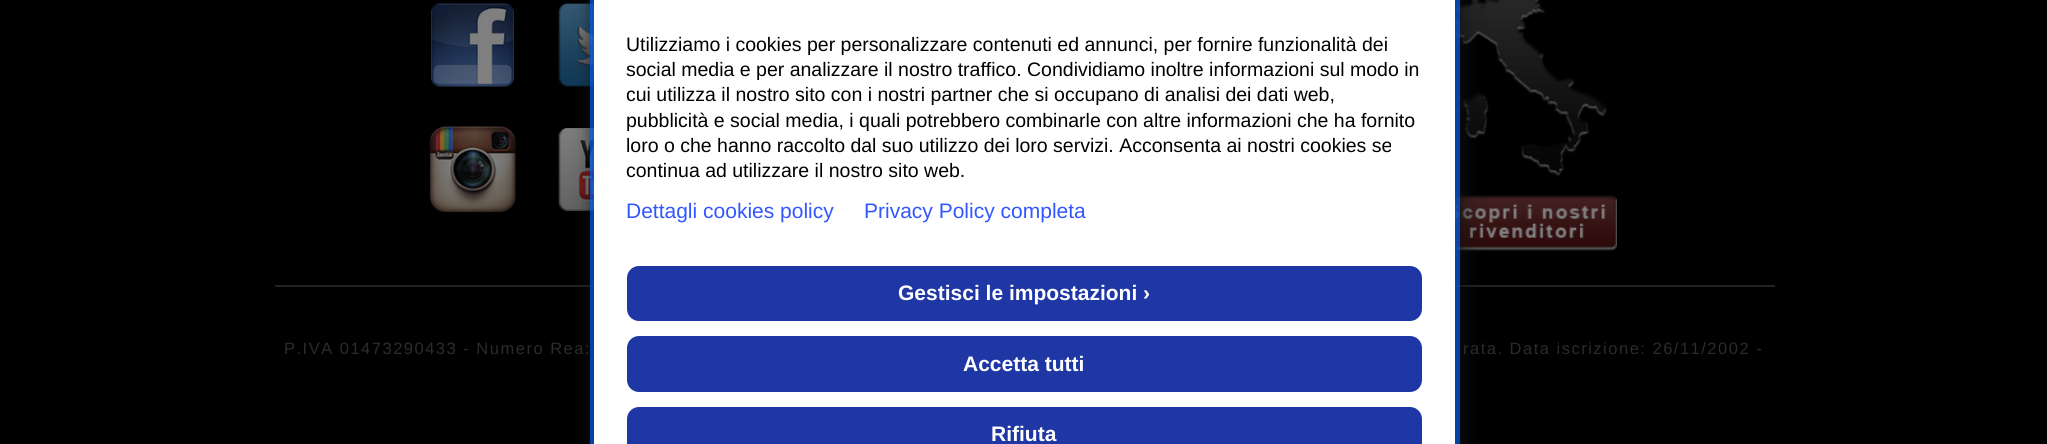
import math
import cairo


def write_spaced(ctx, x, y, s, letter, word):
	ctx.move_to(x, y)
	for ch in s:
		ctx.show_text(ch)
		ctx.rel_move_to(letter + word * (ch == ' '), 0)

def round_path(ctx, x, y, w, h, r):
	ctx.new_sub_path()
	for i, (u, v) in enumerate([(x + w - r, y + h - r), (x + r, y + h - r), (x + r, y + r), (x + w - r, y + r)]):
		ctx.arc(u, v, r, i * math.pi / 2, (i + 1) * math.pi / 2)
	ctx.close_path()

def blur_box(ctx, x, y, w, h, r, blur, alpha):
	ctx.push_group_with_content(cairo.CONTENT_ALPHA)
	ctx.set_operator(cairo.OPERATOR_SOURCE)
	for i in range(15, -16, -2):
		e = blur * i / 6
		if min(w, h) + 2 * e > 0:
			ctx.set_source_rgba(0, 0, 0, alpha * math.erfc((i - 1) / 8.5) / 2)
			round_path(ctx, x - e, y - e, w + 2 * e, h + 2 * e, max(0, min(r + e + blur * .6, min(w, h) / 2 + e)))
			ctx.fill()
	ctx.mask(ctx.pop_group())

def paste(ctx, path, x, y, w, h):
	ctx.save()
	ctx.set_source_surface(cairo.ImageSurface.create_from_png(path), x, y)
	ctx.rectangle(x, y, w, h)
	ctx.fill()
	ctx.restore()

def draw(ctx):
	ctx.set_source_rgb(0, 0, 0)
	ctx.paint()
	paste(ctx, 'media/2.png', 558, 3, 36, 84)
	paste(ctx, 'media/4.png', 558, 128, 36, 83)
	paste(ctx, 'media/5.png', 1455, 0, 162, 251)
	ctx.set_source_rgb(0.133, 0.133, 0.133)
	ctx.rectangle(275, 285, 1500, 2)
	ctx.fill()
	ctx.set_source_rgb(0.071, 0.071, 0.075)
	blur_box(ctx, 594, -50, 867, 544, 18, 10.5, 1)
	ctx.rectangle(592.5, -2.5, 865, 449)
	ctx.set_source_rgba(0, 0.392, 1, 0.64)
	ctx.set_line_width(5)
	ctx.stroke()
	ctx.set_source_rgb(1, 1, 1)
	ctx.rectangle(594, 0, 861, 444)
	ctx.fill()
	ctx.select_font_face('Liberation Sans')
	ctx.set_font_size(19.5)
	ctx.set_source_rgb(0, 0, 0)
	for x, y, s in [
		(626, 51, 'Utilizziamo i cookies per personalizzare contenuti ed annunci, per fornire funzionalità dei'),
		(626, 76, 'social media e per analizzare il nostro traffico. Condividiamo inoltre informazioni sul modo in'),
		(626, 101, 'cui utilizza il nostro sito con i nostri partner che si occupano di analisi dei dati web,'),
		(626, 127, 'pubblicità e social media, i quali potrebbero combinarle con altre informazioni che ha fornito'),
		(626, 152, 'loro o che hanno raccolto dal suo utilizzo dei loro servizi. Acconsenta ai nostri cookies se'),
		(626, 177, 'continua ad utilizzare il nostro sito web.'),
	]:
		ctx.move_to(x, y)
		ctx.show_text(s)
	ctx.set_font_size(21)
	ctx.set_source_rgb(0.196, 0.337, 1)
	ctx.move_to(626, 218)
	ctx.show_text('Dettagli cookies policy')
	ctx.move_to(864, 218)
	ctx.show_text('Privacy Policy completa')
	ctx.set_source_rgb(0.122, 0.216, 0.647)
	round_path(ctx, 627, 266, 795, 55, 12)
	ctx.fill()
	ctx.select_font_face('Liberation Sans', cairo.FONT_SLANT_NORMAL, cairo.FONT_WEIGHT_BOLD)
	ctx.set_source_rgb(1, 1, 1)
	ctx.move_to(898, 300)
	ctx.show_text('Gestisci le impostazioni ›')
	ctx.set_source_rgb(0.122, 0.216, 0.647)
	round_path(ctx, 627, 336, 795, 56, 12)
	ctx.fill()
	ctx.set_source_rgb(1, 1, 1)
	ctx.move_to(963, 371)
	ctx.show_text('Accetta tutti')
	ctx.set_source_rgb(0.122, 0.216, 0.647)
	round_path(ctx, 627, 407, 795, 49, 12)
	ctx.fill()
	ctx.set_source_rgb(1, 1, 1)
	ctx.move_to(991, 441)
	ctx.show_text('Rifiuta')
	paste(ctx, 'media/1.png', 431, 3, 83, 84)
	paste(ctx, 'media/3.png', 429, 126, 87, 87)
	ctx.select_font_face('Liberation Sans')
	ctx.set_font_size(16.5)
	ctx.set_source_rgb(0.169, 0.169, 0.169)
	write_spaced(ctx, 284, 354, 'P.IVA 01473290433 - Numero Rea:', 1.5, 0)
	write_spaced(ctx, 1463, 354, 'rata. Data iscrizione: 26/11/2002 -', 1.5, 0)


surface = cairo.ImageSurface(cairo.FORMAT_RGB24, 2047, 444)
ctx = cairo.Context(surface)
options = cairo.FontOptions()
options.set_hint_metrics(cairo.HINT_METRICS_OFF)
options.set_hint_style(cairo.HINT_STYLE_NONE)
ctx.set_font_options(options)
ctx.set_miter_limit(4)
draw(ctx)
surface.write_to_png('image.png')
